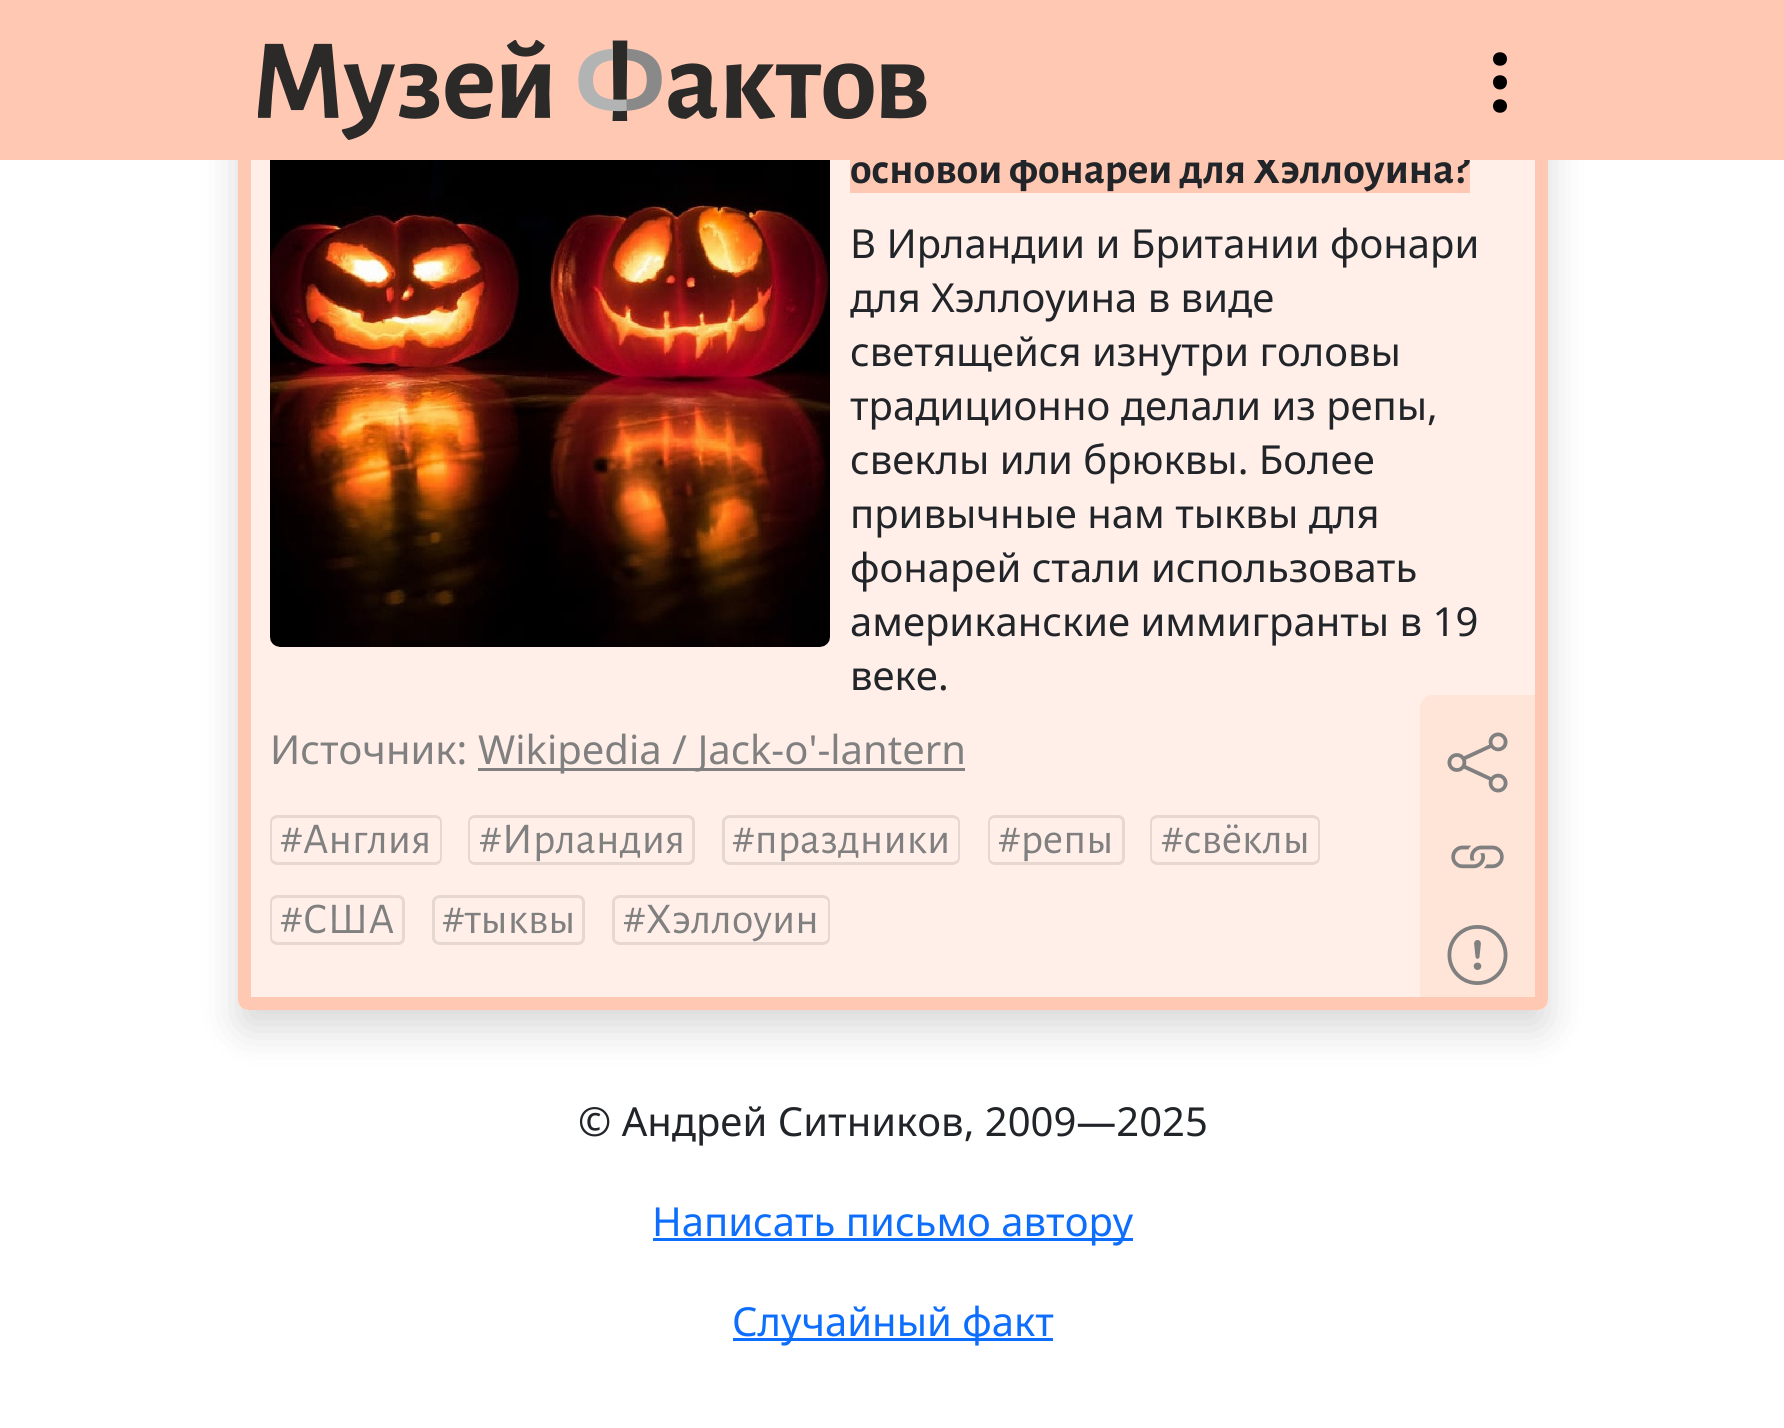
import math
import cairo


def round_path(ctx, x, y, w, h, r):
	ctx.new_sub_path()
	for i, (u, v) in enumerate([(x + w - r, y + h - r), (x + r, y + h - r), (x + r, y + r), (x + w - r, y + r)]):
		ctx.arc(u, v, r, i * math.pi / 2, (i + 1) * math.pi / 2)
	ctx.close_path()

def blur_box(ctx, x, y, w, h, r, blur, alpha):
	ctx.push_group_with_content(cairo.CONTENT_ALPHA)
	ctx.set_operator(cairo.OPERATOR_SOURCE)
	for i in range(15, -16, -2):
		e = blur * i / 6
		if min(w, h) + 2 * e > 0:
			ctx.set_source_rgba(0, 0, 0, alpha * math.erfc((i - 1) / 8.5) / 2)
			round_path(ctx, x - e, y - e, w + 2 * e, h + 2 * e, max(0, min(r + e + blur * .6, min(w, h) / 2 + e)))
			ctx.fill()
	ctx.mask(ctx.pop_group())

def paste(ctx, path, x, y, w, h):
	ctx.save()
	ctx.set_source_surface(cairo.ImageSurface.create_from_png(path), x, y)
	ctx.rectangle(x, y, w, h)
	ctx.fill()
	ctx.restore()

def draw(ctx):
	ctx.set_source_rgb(1, 1, 1)
	ctx.paint()
	ctx.save()
	ctx.set_fill_rule(cairo.FILL_RULE_EVEN_ODD)
	ctx.new_path()
	ctx.move_to(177, 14)
	ctx.line_to(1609, 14)
	ctx.line_to(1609, 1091)
	ctx.line_to(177, 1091)
	ctx.close_path()
	ctx.move_to(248, 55)
	ctx.line_to(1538, 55)
	ctx.curve_to(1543.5, 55, 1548, 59.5, 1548, 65)
	ctx.line_to(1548, 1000)
	ctx.curve_to(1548, 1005.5, 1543.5, 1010, 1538, 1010)
	ctx.line_to(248, 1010)
	ctx.curve_to(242.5, 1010, 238, 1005.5, 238, 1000)
	ctx.line_to(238, 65)
	ctx.curve_to(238, 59.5, 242.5, 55, 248, 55)
	ctx.close_path()
	ctx.clip()
	ctx.set_source_rgb(0, 0, 0)
	blur_box(ctx, 238, 75, 1310, 955, 10, 20, 0.15)
	ctx.restore()
	ctx.set_source_rgba(1, 0.784, 0.702, 0.3)
	round_path(ctx, 244.5, 61.5, 1297, 942, 3.5)
	ctx.fill_preserve()
	ctx.set_source_rgb(1, 0.784, 0.702)
	ctx.set_line_width(13)
	ctx.stroke()
	ctx.rectangle(850, 160, 620, 33)
	ctx.fill()
	ctx.select_font_face('Alegreya Sans', cairo.FONT_SLANT_NORMAL, cairo.FONT_WEIGHT_BOLD)
	ctx.set_font_size(44)
	ctx.set_source_rgb(0.129, 0.145, 0.161)
	ctx.move_to(850, 183)
	ctx.show_text('основой фонарей для Хэллоуина?')
	ctx.set_source_rgb(1, 0.784, 0.702)
	ctx.rectangle(0, 0, 1784, 160)
	ctx.fill()
	paste(ctx, 'media/1.png', 258, 40, 669, 100)
	ctx.set_source_rgb(0, 0, 0)
	ctx.new_path()
	ctx.move_to(1507, 106)
	ctx.curve_to(1507, 115, 1493, 115, 1493, 106)
	ctx.curve_to(1493, 97, 1507, 97, 1507, 106)
	ctx.close_path()
	ctx.move_to(1507, 82)
	ctx.curve_to(1507, 92, 1493, 92, 1493, 82)
	ctx.curve_to(1493, 73, 1507, 73, 1507, 82)
	ctx.close_path()
	ctx.move_to(1507, 59)
	ctx.curve_to(1507, 68, 1493, 68, 1493, 59)
	ctx.curve_to(1493, 50, 1507, 50, 1507, 59)
	ctx.close_path()
	ctx.fill()
	paste(ctx, 'media/2.png', 270, 160, 560, 487)
	ctx.select_font_face('Noto Sans')
	ctx.set_font_size(40)
	ctx.set_source_rgb(0.129, 0.145, 0.161)
	for x, y, s in [
		(850, 258, 'В Ирландии и Британии фонари'),
		(850, 312, 'для Хэллоуина в виде'),
		(850, 366, 'светящейся изнутри головы'),
		(850, 420, 'традиционно делали из репы,'),
		(850, 474, 'свеклы или брюквы. Более'),
		(850, 528, 'привычные нам тыквы для'),
		(850, 582, 'фонарей стали использовать'),
		(850, 636, 'американские иммигранты в 19'),
		(850, 690, 'веке.'),
	]:
		ctx.move_to(x, y)
		ctx.show_text(s)
	ctx.set_source_rgb(0.502, 0.502, 0.502)
	ctx.move_to(270, 764)
	ctx.show_text('Источник:')
	ctx.rectangle(478, 768, 487, 3)
	ctx.fill()
	ctx.move_to(478, 764)
	ctx.show_text('Wikipedia / Jack-o\'-lantern')
	ctx.set_source_rgba(1, 0.784, 0.702, 0.3)
	ctx.new_path()
	ctx.move_to(1433, 695)
	ctx.line_to(1535, 695)
	ctx.line_to(1535, 998)
	ctx.line_to(1420, 998)
	ctx.line_to(1420, 708)
	ctx.curve_to(1420, 701, 1426, 695, 1433, 695)
	ctx.close_path()
	ctx.fill()
	paste(ctx, 'media/3.png', 1447, 732, 61, 61)
	paste(ctx, 'media/4.png', 1451, 845, 53, 24)
	paste(ctx, 'media/5.png', 1447, 925, 61, 60)
	ctx.set_source_rgb(0.902, 0.843, 0.82)
	ctx.set_fill_rule(cairo.FILL_RULE_EVEN_ODD)
	ctx.new_path()
	ctx.move_to(278, 815)
	ctx.line_to(302, 815)
	ctx.line_to(302, 865)
	ctx.line_to(278, 865)
	ctx.curve_to(273, 865, 270, 862, 270, 858)
	ctx.line_to(270, 822)
	ctx.curve_to(270, 818, 273, 815, 278, 815)
	ctx.close_path()
	ctx.move_to(278, 818)
	ctx.line_to(302, 818)
	ctx.line_to(302, 862)
	ctx.line_to(278, 862)
	ctx.curve_to(275, 862, 272, 860, 272, 858)
	ctx.line_to(272, 822)
	ctx.curve_to(272, 820, 275, 818, 278, 818)
	ctx.close_path()
	ctx.fill()
	ctx.new_path()
	ctx.move_to(302, 815)
	ctx.line_to(435, 815)
	ctx.curve_to(439, 815, 442, 818, 442, 822)
	ctx.line_to(442, 858)
	ctx.curve_to(442, 862, 439, 865, 435, 865)
	ctx.line_to(302, 865)
	ctx.close_path()
	ctx.move_to(302, 818)
	ctx.line_to(435, 818)
	ctx.curve_to(438, 818, 440, 820, 440, 822)
	ctx.line_to(440, 858)
	ctx.curve_to(440, 860, 438, 862, 435, 862)
	ctx.line_to(302, 862)
	ctx.close_path()
	ctx.fill()
	ctx.select_font_face('Alegreya Sans')
	ctx.set_font_size(44)
	ctx.set_source_rgb(0.502, 0.502, 0.502)
	ctx.move_to(280, 853)
	ctx.show_text('#Англия')
	ctx.set_source_rgb(0.902, 0.843, 0.82)
	ctx.new_path()
	ctx.move_to(475, 815)
	ctx.line_to(502, 815)
	ctx.line_to(502, 865)
	ctx.line_to(475, 865)
	ctx.curve_to(471, 865, 468, 862, 468, 858)
	ctx.line_to(468, 822)
	ctx.curve_to(468, 818, 471, 815, 475, 815)
	ctx.close_path()
	ctx.move_to(475, 818)
	ctx.line_to(502, 818)
	ctx.line_to(502, 862)
	ctx.line_to(475, 862)
	ctx.curve_to(472, 862, 470, 860, 470, 858)
	ctx.line_to(470, 822)
	ctx.curve_to(470, 820, 472, 818, 475, 818)
	ctx.close_path()
	ctx.fill()
	ctx.new_path()
	ctx.move_to(502, 815)
	ctx.line_to(688, 815)
	ctx.curve_to(692, 815, 695, 818, 695, 822)
	ctx.line_to(695, 858)
	ctx.curve_to(695, 862, 692, 865, 688, 865)
	ctx.line_to(502, 865)
	ctx.close_path()
	ctx.move_to(502, 818)
	ctx.line_to(688, 818)
	ctx.curve_to(690, 818, 692, 820, 692, 822)
	ctx.line_to(692, 858)
	ctx.curve_to(692, 860, 690, 862, 688, 862)
	ctx.line_to(502, 862)
	ctx.close_path()
	ctx.fill()
	ctx.set_source_rgb(0.502, 0.502, 0.502)
	ctx.move_to(479, 853)
	ctx.show_text('#Ирландия')
	ctx.set_source_rgb(0.902, 0.843, 0.82)
	ctx.new_path()
	ctx.move_to(730, 815)
	ctx.line_to(755, 815)
	ctx.line_to(755, 865)
	ctx.line_to(730, 865)
	ctx.curve_to(726, 865, 722, 862, 722, 858)
	ctx.line_to(722, 822)
	ctx.curve_to(722, 818, 726, 815, 730, 815)
	ctx.close_path()
	ctx.move_to(730, 818)
	ctx.line_to(755, 818)
	ctx.line_to(755, 862)
	ctx.line_to(730, 862)
	ctx.curve_to(727, 862, 725, 860, 725, 858)
	ctx.line_to(725, 822)
	ctx.curve_to(725, 820, 727, 818, 730, 818)
	ctx.close_path()
	ctx.fill()
	ctx.new_path()
	ctx.move_to(755, 815)
	ctx.line_to(952, 815)
	ctx.curve_to(957, 815, 960, 818, 960, 822)
	ctx.line_to(960, 858)
	ctx.curve_to(960, 862, 957, 865, 952, 865)
	ctx.line_to(755, 865)
	ctx.close_path()
	ctx.move_to(755, 818)
	ctx.line_to(952, 818)
	ctx.curve_to(955, 818, 958, 820, 958, 822)
	ctx.line_to(958, 858)
	ctx.curve_to(958, 860, 955, 862, 952, 862)
	ctx.line_to(755, 862)
	ctx.close_path()
	ctx.fill()
	ctx.set_source_rgb(0.502, 0.502, 0.502)
	ctx.move_to(732, 853)
	ctx.show_text('#праздники')
	ctx.set_source_rgb(0.902, 0.843, 0.82)
	ctx.new_path()
	ctx.move_to(995, 815)
	ctx.line_to(1020, 815)
	ctx.line_to(1020, 865)
	ctx.line_to(995, 865)
	ctx.curve_to(991, 865, 988, 862, 988, 858)
	ctx.line_to(988, 822)
	ctx.curve_to(988, 818, 991, 815, 995, 815)
	ctx.close_path()
	ctx.move_to(995, 818)
	ctx.line_to(1020, 818)
	ctx.line_to(1020, 862)
	ctx.line_to(995, 862)
	ctx.curve_to(992, 862, 990, 860, 990, 858)
	ctx.line_to(990, 822)
	ctx.curve_to(990, 820, 992, 818, 995, 818)
	ctx.close_path()
	ctx.fill()
	ctx.new_path()
	ctx.move_to(1020, 815)
	ctx.line_to(1118, 815)
	ctx.curve_to(1122, 815, 1125, 818, 1125, 822)
	ctx.line_to(1125, 858)
	ctx.curve_to(1125, 862, 1122, 865, 1118, 865)
	ctx.line_to(1020, 865)
	ctx.close_path()
	ctx.move_to(1020, 818)
	ctx.line_to(1118, 818)
	ctx.curve_to(1120, 818, 1122, 820, 1122, 822)
	ctx.line_to(1122, 858)
	ctx.curve_to(1122, 860, 1120, 862, 1118, 862)
	ctx.line_to(1020, 862)
	ctx.close_path()
	ctx.fill()
	ctx.set_source_rgb(0.502, 0.502, 0.502)
	ctx.move_to(998, 853)
	ctx.show_text('#репы')
	ctx.set_source_rgb(0.902, 0.843, 0.82)
	ctx.new_path()
	ctx.move_to(1158, 815)
	ctx.line_to(1182, 815)
	ctx.line_to(1182, 865)
	ctx.line_to(1158, 865)
	ctx.curve_to(1153, 865, 1150, 862, 1150, 858)
	ctx.line_to(1150, 822)
	ctx.curve_to(1150, 818, 1153, 815, 1158, 815)
	ctx.close_path()
	ctx.move_to(1158, 818)
	ctx.line_to(1182, 818)
	ctx.line_to(1182, 862)
	ctx.line_to(1158, 862)
	ctx.curve_to(1155, 862, 1152, 860, 1152, 858)
	ctx.line_to(1152, 822)
	ctx.curve_to(1152, 820, 1155, 818, 1158, 818)
	ctx.close_path()
	ctx.fill()
	ctx.new_path()
	ctx.move_to(1182, 815)
	ctx.line_to(1312, 815)
	ctx.curve_to(1317, 815, 1320, 818, 1320, 822)
	ctx.line_to(1320, 858)
	ctx.curve_to(1320, 862, 1317, 865, 1312, 865)
	ctx.line_to(1182, 865)
	ctx.close_path()
	ctx.move_to(1182, 818)
	ctx.line_to(1312, 818)
	ctx.curve_to(1315, 818, 1318, 820, 1318, 822)
	ctx.line_to(1318, 858)
	ctx.curve_to(1318, 860, 1315, 862, 1312, 862)
	ctx.line_to(1182, 862)
	ctx.close_path()
	ctx.fill()
	ctx.set_source_rgb(0.502, 0.502, 0.502)
	ctx.move_to(1161, 853)
	ctx.show_text('#свёклы')
	ctx.set_source_rgb(0.902, 0.843, 0.82)
	ctx.new_path()
	ctx.move_to(278, 895)
	ctx.line_to(302, 895)
	ctx.line_to(302, 945)
	ctx.line_to(278, 945)
	ctx.curve_to(273, 945, 270, 942, 270, 938)
	ctx.line_to(270, 902)
	ctx.curve_to(270, 898, 273, 895, 278, 895)
	ctx.close_path()
	ctx.move_to(278, 898)
	ctx.line_to(302, 898)
	ctx.line_to(302, 942)
	ctx.line_to(278, 942)
	ctx.curve_to(275, 942, 272, 940, 272, 938)
	ctx.line_to(272, 902)
	ctx.curve_to(272, 900, 275, 898, 278, 898)
	ctx.close_path()
	ctx.fill()
	ctx.new_path()
	ctx.move_to(302, 895)
	ctx.line_to(398, 895)
	ctx.curve_to(402, 895, 405, 898, 405, 902)
	ctx.line_to(405, 938)
	ctx.curve_to(405, 942, 402, 945, 398, 945)
	ctx.line_to(302, 945)
	ctx.close_path()
	ctx.move_to(302, 898)
	ctx.line_to(398, 898)
	ctx.curve_to(400, 898, 402, 900, 402, 902)
	ctx.line_to(402, 938)
	ctx.curve_to(402, 940, 400, 942, 398, 942)
	ctx.line_to(302, 942)
	ctx.close_path()
	ctx.fill()
	ctx.set_source_rgb(0.502, 0.502, 0.502)
	ctx.move_to(280, 933)
	ctx.show_text('#США')
	ctx.set_source_rgb(0.902, 0.843, 0.82)
	ctx.new_path()
	ctx.move_to(440, 895)
	ctx.line_to(465, 895)
	ctx.line_to(465, 945)
	ctx.line_to(440, 945)
	ctx.curve_to(436, 945, 432, 942, 432, 938)
	ctx.line_to(432, 902)
	ctx.curve_to(432, 898, 436, 895, 440, 895)
	ctx.close_path()
	ctx.move_to(440, 898)
	ctx.line_to(465, 898)
	ctx.line_to(465, 942)
	ctx.line_to(440, 942)
	ctx.curve_to(437, 942, 435, 940, 435, 938)
	ctx.line_to(435, 902)
	ctx.curve_to(435, 900, 437, 898, 440, 898)
	ctx.close_path()
	ctx.fill()
	ctx.new_path()
	ctx.move_to(465, 895)
	ctx.line_to(578, 895)
	ctx.curve_to(582, 895, 585, 898, 585, 902)
	ctx.line_to(585, 938)
	ctx.curve_to(585, 942, 582, 945, 578, 945)
	ctx.line_to(465, 945)
	ctx.close_path()
	ctx.move_to(465, 898)
	ctx.line_to(578, 898)
	ctx.curve_to(580, 898, 582, 900, 582, 902)
	ctx.line_to(582, 938)
	ctx.curve_to(582, 940, 580, 942, 578, 942)
	ctx.line_to(465, 942)
	ctx.close_path()
	ctx.fill()
	ctx.set_source_rgb(0.502, 0.502, 0.502)
	ctx.move_to(442, 933)
	ctx.show_text('#тыквы')
	ctx.set_source_rgb(0.902, 0.843, 0.82)
	ctx.new_path()
	ctx.move_to(620, 895)
	ctx.line_to(645, 895)
	ctx.line_to(645, 945)
	ctx.line_to(620, 945)
	ctx.curve_to(616, 945, 612, 942, 612, 938)
	ctx.line_to(612, 902)
	ctx.curve_to(612, 898, 616, 895, 620, 895)
	ctx.close_path()
	ctx.move_to(620, 898)
	ctx.line_to(645, 898)
	ctx.line_to(645, 942)
	ctx.line_to(620, 942)
	ctx.curve_to(617, 942, 615, 940, 615, 938)
	ctx.line_to(615, 902)
	ctx.curve_to(615, 900, 617, 898, 620, 898)
	ctx.close_path()
	ctx.fill()
	ctx.new_path()
	ctx.move_to(645, 895)
	ctx.line_to(822, 895)
	ctx.curve_to(827, 895, 830, 898, 830, 902)
	ctx.line_to(830, 938)
	ctx.curve_to(830, 942, 827, 945, 822, 945)
	ctx.line_to(645, 945)
	ctx.close_path()
	ctx.move_to(645, 898)
	ctx.line_to(822, 898)
	ctx.curve_to(825, 898, 828, 900, 828, 902)
	ctx.line_to(828, 938)
	ctx.curve_to(828, 940, 825, 942, 822, 942)
	ctx.line_to(645, 942)
	ctx.close_path()
	ctx.fill()
	ctx.set_source_rgb(0.502, 0.502, 0.502)
	ctx.move_to(623, 933)
	ctx.show_text('#Хэллоуин')
	ctx.select_font_face('Noto Sans')
	ctx.set_font_size(40)
	ctx.set_source_rgb(0.129, 0.145, 0.161)
	ctx.move_to(578, 1136)
	ctx.show_text('© Андрей Ситников, 2009—2025')
	ctx.set_source_rgb(0.051, 0.431, 0.992)
	ctx.rectangle(653, 1238, 480, 3)
	ctx.fill()
	ctx.move_to(652, 1236)
	ctx.show_text('Написать письмо автору')
	ctx.rectangle(733, 1338, 320, 3)
	ctx.fill()
	ctx.move_to(732, 1336)
	ctx.show_text('Случайный факт')


surface = cairo.ImageSurface(cairo.FORMAT_RGB24, 1784, 1428)
ctx = cairo.Context(surface)
options = cairo.FontOptions()
options.set_hint_metrics(cairo.HINT_METRICS_OFF)
options.set_hint_style(cairo.HINT_STYLE_NONE)
ctx.set_font_options(options)
ctx.set_miter_limit(4)
draw(ctx)
surface.write_to_png('image.png')
